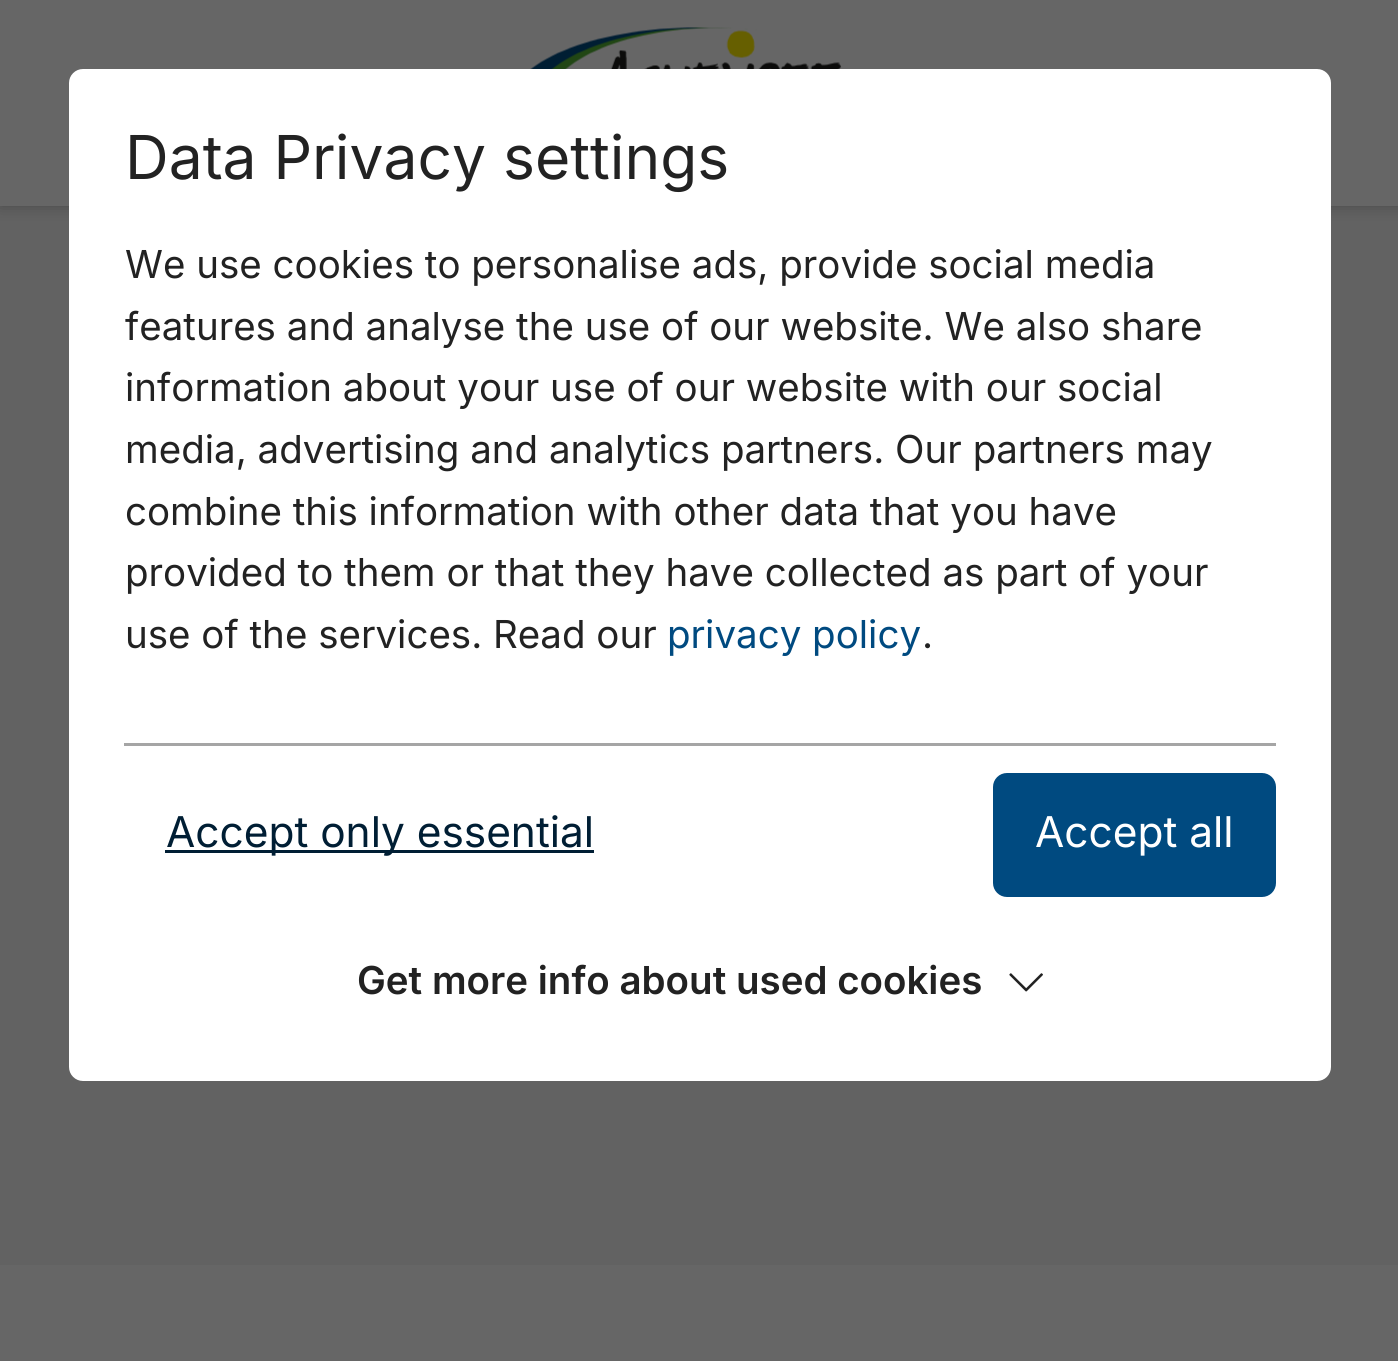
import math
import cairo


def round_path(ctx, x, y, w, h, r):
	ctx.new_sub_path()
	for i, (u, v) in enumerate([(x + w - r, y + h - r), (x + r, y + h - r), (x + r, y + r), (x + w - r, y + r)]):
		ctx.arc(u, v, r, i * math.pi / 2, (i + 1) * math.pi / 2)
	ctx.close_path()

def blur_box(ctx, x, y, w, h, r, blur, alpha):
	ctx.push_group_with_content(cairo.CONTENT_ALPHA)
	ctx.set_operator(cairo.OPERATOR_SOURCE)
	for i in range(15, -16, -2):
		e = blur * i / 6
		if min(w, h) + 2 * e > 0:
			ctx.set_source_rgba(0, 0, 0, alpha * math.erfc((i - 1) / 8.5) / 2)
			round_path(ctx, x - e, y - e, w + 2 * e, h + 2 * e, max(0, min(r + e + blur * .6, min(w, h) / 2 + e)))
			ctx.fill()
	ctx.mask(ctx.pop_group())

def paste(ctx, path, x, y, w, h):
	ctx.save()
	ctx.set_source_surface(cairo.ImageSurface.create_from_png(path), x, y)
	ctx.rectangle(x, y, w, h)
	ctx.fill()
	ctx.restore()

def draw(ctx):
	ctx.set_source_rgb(0.4, 0.4, 0.4)
	ctx.paint()
	ctx.set_source_rgb(0.384, 0.384, 0.384)
	ctx.rectangle(0, 206, 1398, 1059)
	ctx.fill()
	ctx.set_source_rgb(0, 0, 0)
	blur_box(ctx, 0, 0, 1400, 206, 0, 8, 0.26)
	ctx.set_source_rgb(0.4, 0.4, 0.4)
	ctx.rectangle(0, 0, 1398, 206)
	ctx.fill()
	paste(ctx, 'media/1.png', 530, 27, 312, 42)
	ctx.set_source_rgb(1, 1, 1)
	round_path(ctx, 69, 69, 1262, 1012, 14)
	ctx.fill()
	ctx.select_font_face('Inter')
	ctx.set_font_size(60.5)
	ctx.set_source_rgb(0.133, 0.133, 0.133)
	ctx.move_to(125, 179)
	ctx.show_text('Data Privacy settings')
	ctx.set_font_size(38.5)
	for x, y, s in [
		(125, 278, 'We use cookies to personalise ads, provide social media'),
		(125, 340, 'features and analyse the use of our website. We also share'),
		(125, 401, 'information about your use of our website with our social'),
		(125, 463, 'media, advertising and analytics partners. Our partners may'),
		(125, 525, 'combine this information with other data that you have'),
		(125, 586, 'provided to them or that they have collected as part of your'),
		(125, 648, 'use of the services. Read our'),
	]:
		ctx.move_to(x, y)
		ctx.show_text(s)
	ctx.set_source_rgb(0, 0.29, 0.502)
	ctx.move_to(667, 648)
	ctx.show_text('privacy policy')
	ctx.set_source_rgb(0.133, 0.133, 0.133)
	ctx.move_to(922, 648)
	ctx.show_text('.')
	ctx.set_source_rgb(0.647, 0.647, 0.647)
	ctx.rectangle(124, 743, 1152, 3)
	ctx.fill()
	ctx.set_source_rgb(0, 0.118, 0.204)
	ctx.rectangle(165, 850, 429, 3)
	ctx.fill()
	ctx.set_font_size(42.4)
	ctx.move_to(166, 847)
	ctx.show_text('Accept only essential')
	ctx.set_source_rgb(0, 0.29, 0.502)
	round_path(ctx, 993, 773, 283, 124, 14)
	ctx.fill()
	ctx.set_source_rgb(1, 1, 1)
	ctx.move_to(1035, 847)
	ctx.show_text('Accept all')
	ctx.select_font_face('Inter SemiBold')
	ctx.set_font_size(38.5)
	ctx.set_source_rgb(0.133, 0.133, 0.133)
	ctx.move_to(357, 994)
	ctx.show_text('Get more info about used cookies')
	paste(ctx, 'media/2.png', 1009, 973, 34, 19)


surface = cairo.ImageSurface(cairo.FORMAT_RGB24, 1398, 1361)
ctx = cairo.Context(surface)
options = cairo.FontOptions()
options.set_hint_metrics(cairo.HINT_METRICS_OFF)
options.set_hint_style(cairo.HINT_STYLE_NONE)
ctx.set_font_options(options)
ctx.set_miter_limit(4)
draw(ctx)
surface.write_to_png('image.png')
